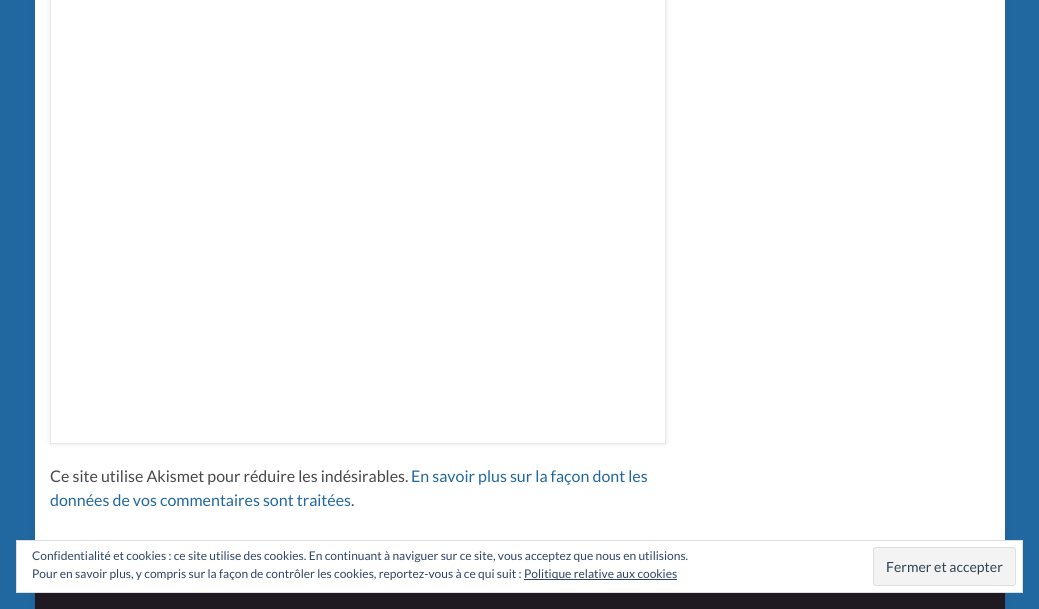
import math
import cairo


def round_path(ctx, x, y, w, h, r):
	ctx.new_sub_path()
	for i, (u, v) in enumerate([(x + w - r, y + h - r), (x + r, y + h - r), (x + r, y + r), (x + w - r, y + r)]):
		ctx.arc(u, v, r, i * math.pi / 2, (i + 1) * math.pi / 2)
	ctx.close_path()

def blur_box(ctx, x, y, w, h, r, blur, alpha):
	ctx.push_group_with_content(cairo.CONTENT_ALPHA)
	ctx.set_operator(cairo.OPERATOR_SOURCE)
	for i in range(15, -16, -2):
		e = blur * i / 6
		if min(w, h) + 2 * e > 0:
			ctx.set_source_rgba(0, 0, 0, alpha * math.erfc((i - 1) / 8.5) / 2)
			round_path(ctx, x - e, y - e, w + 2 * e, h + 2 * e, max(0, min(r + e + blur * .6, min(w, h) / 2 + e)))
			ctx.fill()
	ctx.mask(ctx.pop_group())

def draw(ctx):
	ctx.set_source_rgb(0.129, 0.408, 0.631)
	ctx.paint()
	ctx.set_source_rgb(0, 0, 0)
	blur_box(ctx, 35, -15, 970, 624, 0, 5, 0.1)
	ctx.set_source_rgb(1, 1, 1)
	ctx.rectangle(35, 0, 970, 540)
	ctx.fill()
	ctx.save()
	ctx.set_fill_rule(cairo.FILL_RULE_EVEN_ODD)
	ctx.new_path()
	ctx.move_to(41, 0)
	ctx.line_to(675, 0)
	ctx.line_to(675, 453)
	ctx.line_to(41, 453)
	ctx.close_path()
	ctx.move_to(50, -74)
	ctx.line_to(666, -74)
	ctx.line_to(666, 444)
	ctx.line_to(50, 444)
	ctx.close_path()
	ctx.clip()
	ctx.set_source_rgb(0, 0, 0)
	blur_box(ctx, 50, -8, 616, 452, 0, 2.5, 0.1)
	ctx.restore()
	ctx.rectangle(50.5, -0.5, 615, 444)
	ctx.set_source_rgb(0.914, 0.91, 0.89)
	ctx.set_line_width(1)
	ctx.stroke()
	ctx.select_font_face('Lato')
	ctx.set_font_size(16)
	ctx.set_source_rgb(0.29, 0.278, 0.294)
	ctx.move_to(50, 482)
	ctx.show_text('Ce site utilise Akismet pour réduire les indésirables.')
	ctx.set_source_rgb(0.129, 0.408, 0.631)
	ctx.move_to(411, 482)
	ctx.show_text('En savoir plus sur la façon dont les')
	ctx.move_to(50, 506)
	ctx.show_text('données de vos commentaires sont traitées')
	ctx.set_source_rgb(0.29, 0.278, 0.294)
	ctx.move_to(351, 506)
	ctx.show_text('.')
	ctx.set_source_rgb(0.122, 0.102, 0.133)
	ctx.rectangle(35, 593, 970, 16)
	ctx.fill()
	ctx.set_source_rgb(1, 1, 1)
	ctx.rectangle(16.5, 540.5, 1006, 52)
	ctx.fill_preserve()
	ctx.set_source_rgb(0.871, 0.871, 0.871)
	ctx.stroke()
	ctx.set_font_size(12)
	ctx.set_source_rgb(0.18, 0.267, 0.404)
	ctx.move_to(32, 560)
	ctx.show_text('Confidentialité et cookies : ce site utilise des cookies. En continuant à naviguer sur ce site, vous acceptez que nous en utilisions.')
	ctx.move_to(32, 578)
	ctx.show_text('Pour en savoir plus, y compris sur la façon de contrôler les cookies, reportez-vous à ce qui suit :')
	ctx.rectangle(524, 579, 153, 1)
	ctx.fill()
	ctx.move_to(524, 578)
	ctx.show_text('Politique relative aux cookies')
	ctx.set_source_rgb(0.953, 0.953, 0.953)
	round_path(ctx, 873.5, 547.5, 142, 38, 2.5)
	ctx.fill_preserve()
	ctx.set_source_rgb(0.871, 0.871, 0.871)
	ctx.stroke()
	ctx.set_font_size(14)
	ctx.set_source_rgb(0.18, 0.267, 0.325)
	ctx.move_to(886, 572)
	ctx.show_text('Fermer et accepter')


surface = cairo.ImageSurface(cairo.FORMAT_RGB24, 1039, 609)
ctx = cairo.Context(surface)
options = cairo.FontOptions()
options.set_hint_metrics(cairo.HINT_METRICS_OFF)
options.set_hint_style(cairo.HINT_STYLE_NONE)
ctx.set_font_options(options)
ctx.set_miter_limit(4)
draw(ctx)
surface.write_to_png('image.png')
